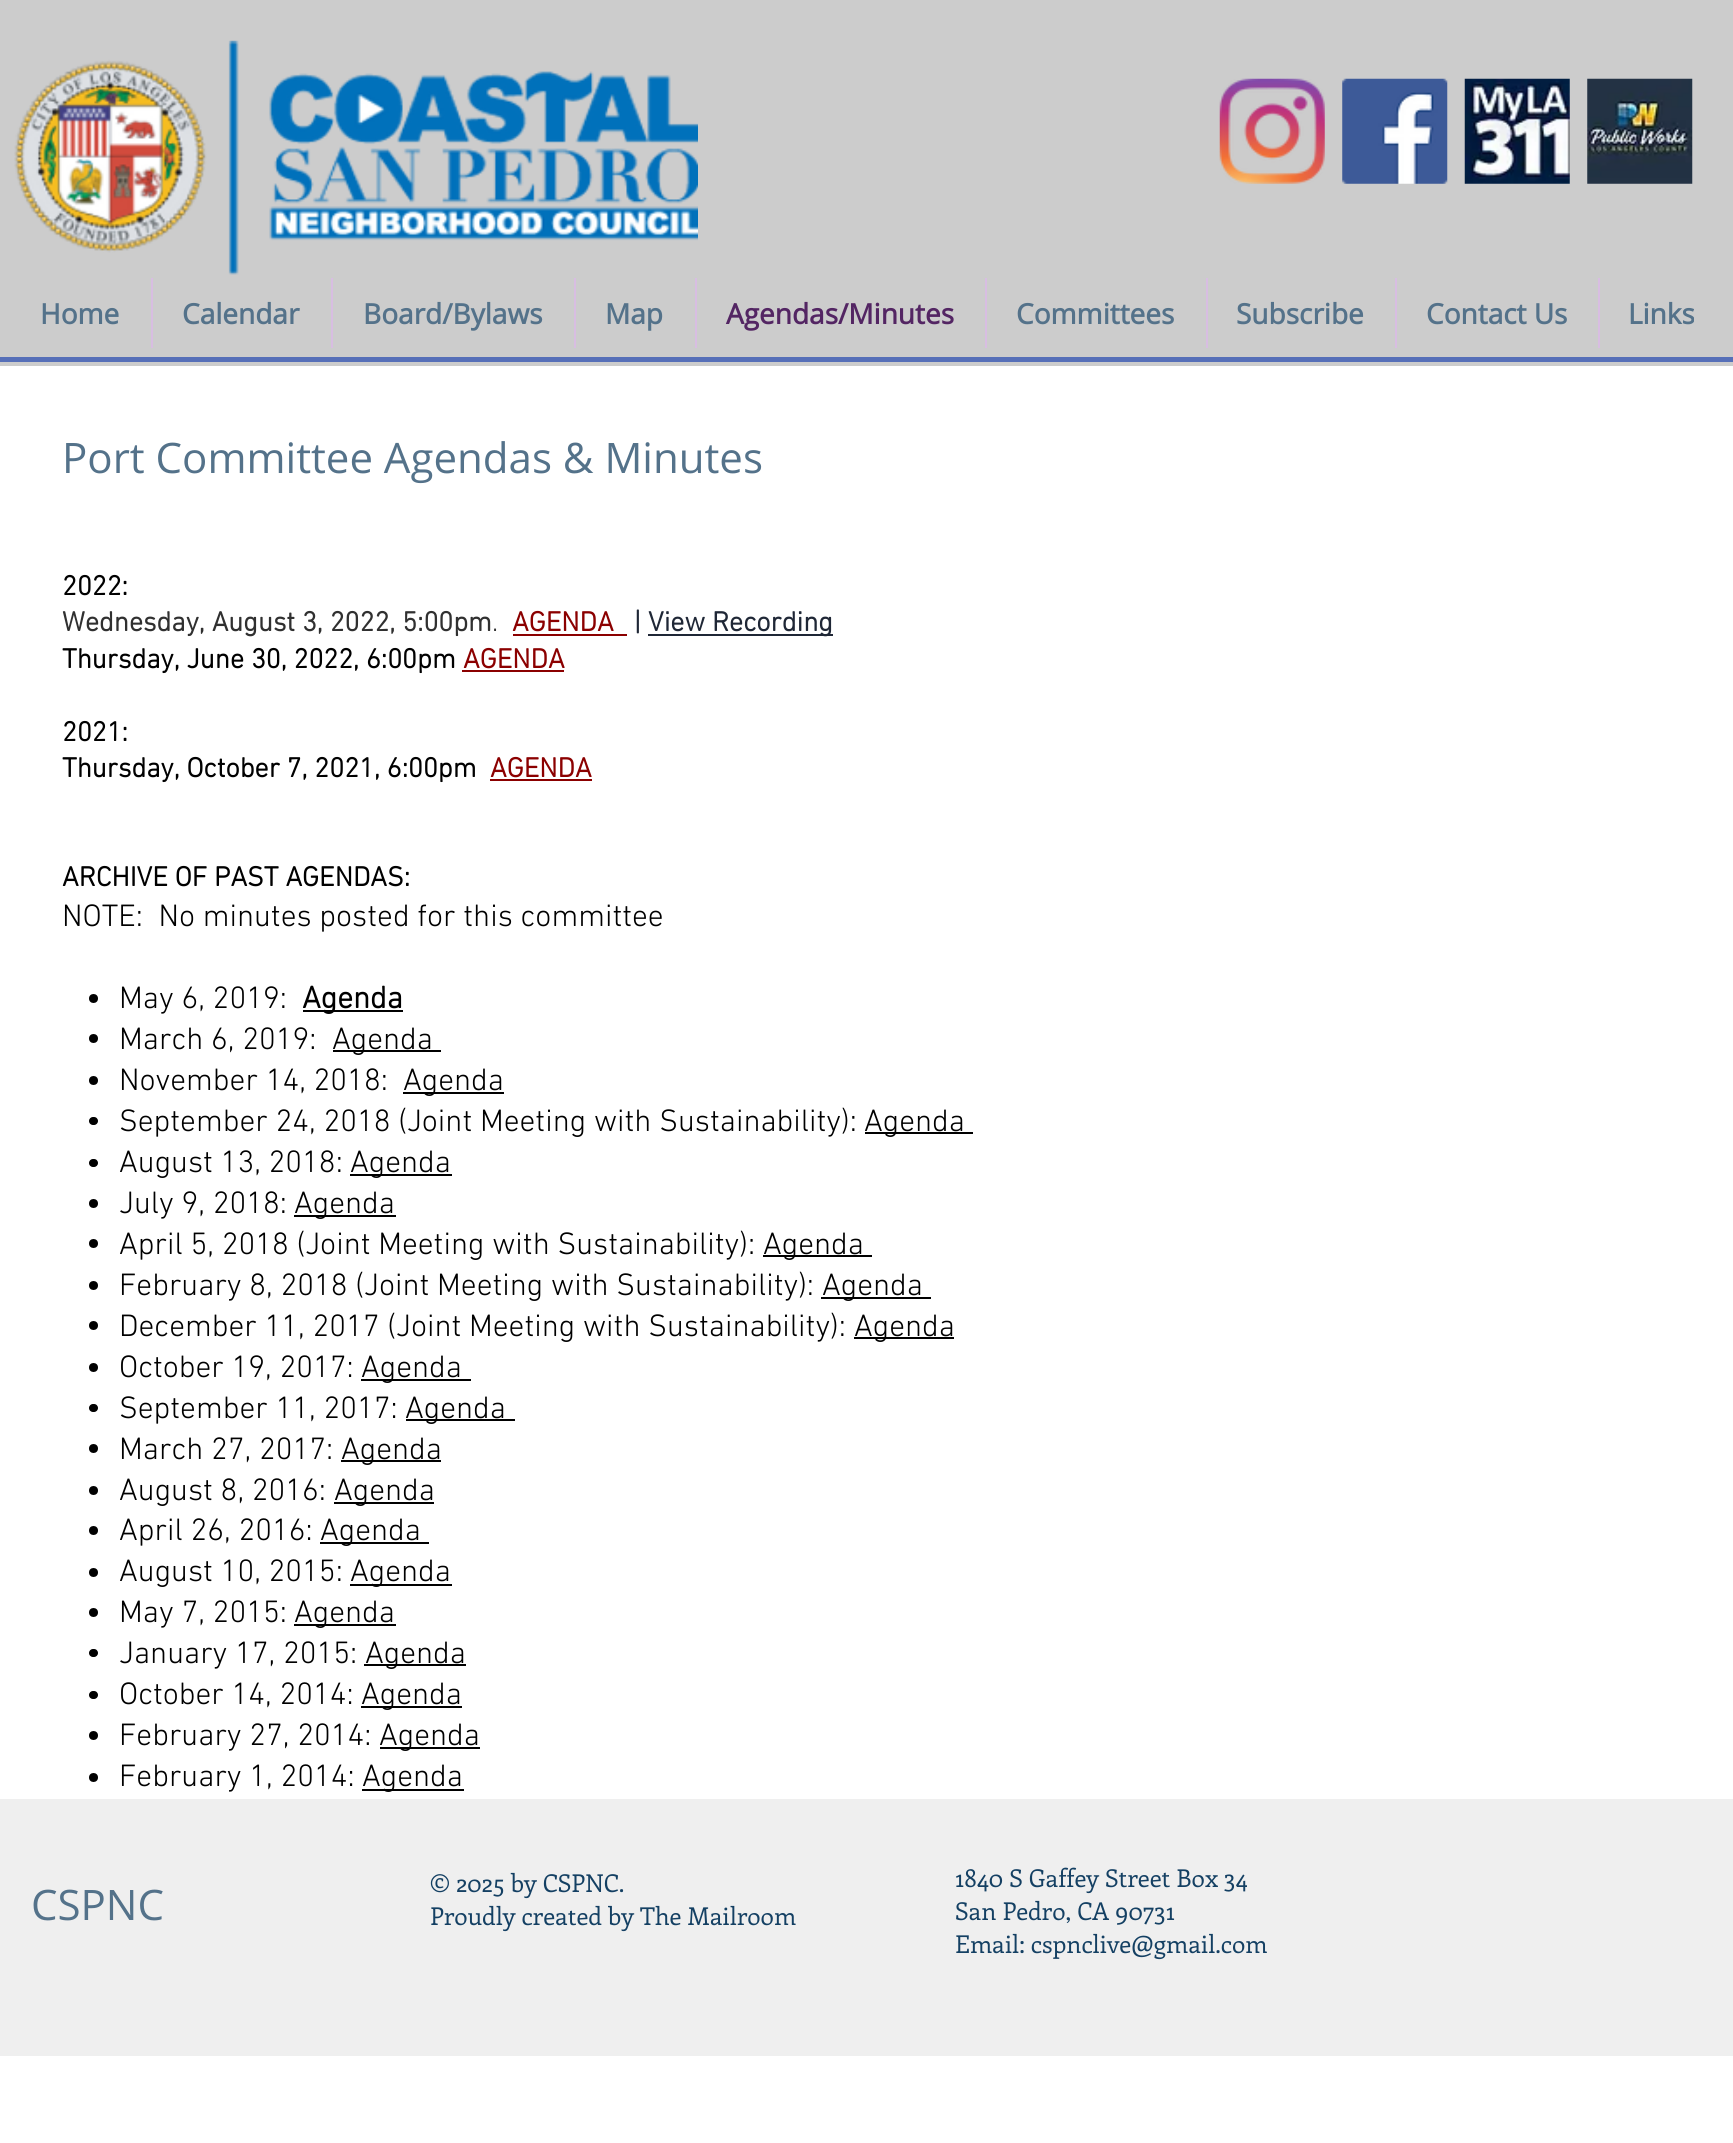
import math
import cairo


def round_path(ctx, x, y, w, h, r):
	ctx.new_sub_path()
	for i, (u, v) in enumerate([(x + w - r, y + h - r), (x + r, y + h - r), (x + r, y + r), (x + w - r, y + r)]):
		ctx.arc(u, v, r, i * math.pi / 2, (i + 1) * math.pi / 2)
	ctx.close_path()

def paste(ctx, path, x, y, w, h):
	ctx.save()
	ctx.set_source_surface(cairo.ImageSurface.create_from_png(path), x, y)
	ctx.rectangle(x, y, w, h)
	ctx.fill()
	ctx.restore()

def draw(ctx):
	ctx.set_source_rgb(1, 1, 1)
	ctx.paint()
	ctx.set_source_rgb(0.8, 0.8, 0.8)
	ctx.rectangle(0, 0, 1733, 366)
	ctx.fill()
	paste(ctx, 'media/1.png', 14, 40, 684, 235)
	paste(ctx, 'media/2.png', 1219, 78, 106, 106)
	paste(ctx, 'media/3.png', 1342, 78, 106, 106)
	paste(ctx, 'media/4.png', 1464, 78, 106, 106)
	paste(ctx, 'media/5.png', 1587, 78, 106, 106)
	ctx.select_font_face('Open Sans', cairo.FONT_SLANT_NORMAL, cairo.FONT_WEIGHT_BOLD)
	ctx.set_font_size(28)
	ctx.set_source_rgb(0.329, 0.447, 0.541)
	ctx.move_to(40, 324)
	ctx.show_text('Home')
	ctx.set_source_rgb(0.847, 0.741, 0.886)
	ctx.rectangle(151, 278, 2, 70)
	ctx.fill()
	ctx.set_source_rgb(0.329, 0.447, 0.541)
	ctx.move_to(182, 324)
	ctx.show_text('Calendar')
	ctx.set_source_rgb(0.847, 0.741, 0.886)
	ctx.rectangle(331, 278, 2, 70)
	ctx.fill()
	ctx.set_source_rgb(0.329, 0.447, 0.541)
	ctx.move_to(363, 324)
	ctx.show_text('Board/Bylaws')
	ctx.set_source_rgb(0.847, 0.741, 0.886)
	ctx.rectangle(574, 278, 2, 70)
	ctx.fill()
	ctx.set_source_rgb(0.329, 0.447, 0.541)
	ctx.move_to(605, 324)
	ctx.show_text('Map')
	ctx.set_source_rgb(0.847, 0.741, 0.886)
	ctx.rectangle(695, 278, 2, 70)
	ctx.fill()
	ctx.set_source_rgb(0.325, 0.145, 0.388)
	ctx.move_to(726, 324)
	ctx.show_text('Agendas/Minutes')
	ctx.set_source_rgb(0.847, 0.741, 0.886)
	ctx.rectangle(985, 278, 2, 70)
	ctx.fill()
	ctx.set_source_rgb(0.329, 0.447, 0.541)
	ctx.move_to(1016, 324)
	ctx.show_text('Committees')
	ctx.set_source_rgb(0.847, 0.741, 0.886)
	ctx.rectangle(1206, 278, 2, 70)
	ctx.fill()
	ctx.set_source_rgb(0.329, 0.447, 0.541)
	ctx.move_to(1236, 324)
	ctx.show_text('Subscribe')
	ctx.set_source_rgb(0.847, 0.741, 0.886)
	ctx.rectangle(1395, 278, 2, 70)
	ctx.fill()
	ctx.set_source_rgb(0.329, 0.447, 0.541)
	ctx.move_to(1426, 324)
	ctx.show_text('Contact Us')
	ctx.set_source_rgb(0.847, 0.741, 0.886)
	ctx.rectangle(1598, 278, 2, 70)
	ctx.fill()
	ctx.set_source_rgb(0.329, 0.447, 0.541)
	ctx.move_to(1628, 324)
	ctx.show_text('Links')
	ctx.set_source_rgb(0.337, 0.435, 0.722)
	ctx.rectangle(0, 357, 1733, 5)
	ctx.fill()
	ctx.select_font_face('Open Sans')
	ctx.set_font_size(42)
	ctx.set_source_rgb(0.329, 0.447, 0.541)
	ctx.move_to(62, 473)
	ctx.show_text('Port Committee Agendas & Minutes')
	ctx.select_font_face('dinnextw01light', cairo.FONT_SLANT_NORMAL, cairo.FONT_WEIGHT_BOLD)
	ctx.set_font_size(28)
	ctx.set_source_rgb(0, 0, 0)
	ctx.move_to(62, 595)
	ctx.show_text('2022:')
	ctx.set_source_rgb(0.188, 0.188, 0.188)
	ctx.move_to(62, 631)
	ctx.show_text('Wednesday, August 3, 2022, 5:00pm')
	ctx.select_font_face('dinnextw01light Light')
	ctx.move_to(492, 631)
	ctx.show_text('.')
	ctx.select_font_face('dinnextw01light', cairo.FONT_SLANT_NORMAL, cairo.FONT_WEIGHT_BOLD)
	ctx.set_source_rgb(0.545, 0, 0)
	ctx.move_to(512, 631)
	ctx.show_text('AGENDA')
	ctx.rectangle(513, 634, 114, 2)
	ctx.fill()
	ctx.set_source_rgb(0.122, 0.153, 0.212)
	ctx.move_to(634, 631)
	ctx.show_text('|')
	ctx.rectangle(648, 634, 185, 2)
	ctx.fill()
	ctx.move_to(648, 631)
	ctx.show_text('View Recording')
	ctx.set_source_rgb(0, 0, 0)
	ctx.move_to(62, 668)
	ctx.show_text('Thursday, June 30, 2022, 6:00pm')
	ctx.set_source_rgb(0.545, 0, 0)
	ctx.move_to(463, 668)
	ctx.show_text('AGENDA')
	ctx.rectangle(462, 670, 102, 2)
	ctx.fill()
	ctx.set_source_rgb(0, 0, 0)
	ctx.move_to(62, 741)
	ctx.show_text('2021:')
	ctx.move_to(62, 777)
	ctx.show_text('Thursday, October 7, 2021, 6:00pm')
	ctx.set_source_rgb(0.545, 0, 0)
	ctx.move_to(490, 777)
	ctx.show_text('AGENDA')
	ctx.rectangle(490, 779, 102, 2)
	ctx.fill()
	ctx.set_source_rgb(0, 0, 0)
	ctx.move_to(62, 886)
	ctx.show_text('ARCHIVE OF PAST AGENDAS:')
	ctx.select_font_face('dinnextw01light Light')
	ctx.set_font_size(31.5)
	ctx.move_to(62, 926)
	ctx.show_text('NOTE:  No minutes posted for this committee')
	ctx.new_path()
	ctx.arc(93.5, 998.5, 4.5, 0, 2 * math.pi)
	ctx.fill()
	ctx.move_to(119, 1008)
	ctx.show_text('May 6, 2019:')
	ctx.rectangle(303, 1010, 100, 2)
	ctx.fill()
	ctx.select_font_face('dinnextw01light', cairo.FONT_SLANT_NORMAL, cairo.FONT_WEIGHT_BOLD)
	ctx.move_to(302, 1008)
	ctx.show_text('Agenda')
	ctx.new_path()
	ctx.arc(93.5, 1038.5, 4.5, 0, 2 * math.pi)
	ctx.fill()
	ctx.select_font_face('dinnextw01light Light')
	ctx.move_to(119, 1049)
	ctx.show_text('March 6, 2019:')
	ctx.rectangle(333, 1050, 108, 2)
	ctx.fill()
	ctx.move_to(332, 1049)
	ctx.show_text('Agenda')
	ctx.new_path()
	ctx.arc(93.5, 1080.5, 4.5, 0, 2 * math.pi)
	ctx.fill()
	ctx.move_to(119, 1090)
	ctx.show_text('November 14, 2018:')
	ctx.rectangle(403, 1092, 101, 2)
	ctx.fill()
	ctx.move_to(403, 1090)
	ctx.show_text('Agenda')
	round_path(ctx, 89, 1117, 9, 8, 4)
	ctx.fill()
	ctx.move_to(119, 1131)
	ctx.show_text('September 24, 2018 (Joint Meeting with Sustainability):')
	ctx.rectangle(865, 1132, 108, 2)
	ctx.fill()
	ctx.move_to(864, 1131)
	ctx.show_text('Agenda')
	round_path(ctx, 89, 1159, 9, 8, 4)
	ctx.fill()
	ctx.move_to(119, 1172)
	ctx.show_text('August 13, 2018:')
	ctx.rectangle(350, 1174, 102, 2)
	ctx.fill()
	ctx.move_to(350, 1172)
	ctx.show_text('Agenda')
	ctx.new_path()
	ctx.arc(93.5, 1203.5, 4.5, 0, 2 * math.pi)
	ctx.fill()
	ctx.move_to(119, 1213)
	ctx.show_text('July 9, 2018:')
	ctx.rectangle(294, 1215, 102, 2)
	ctx.fill()
	ctx.move_to(294, 1213)
	ctx.show_text('Agenda')
	ctx.new_path()
	ctx.arc(93.5, 1243.5, 4.5, 0, 2 * math.pi)
	ctx.fill()
	ctx.move_to(119, 1254)
	ctx.show_text('April 5, 2018 (Joint Meeting with Sustainability):')
	ctx.rectangle(763, 1255, 109, 2)
	ctx.fill()
	ctx.move_to(763, 1254)
	ctx.show_text('Agenda')
	ctx.new_path()
	ctx.arc(93.5, 1285.5, 4.5, 0, 2 * math.pi)
	ctx.fill()
	ctx.move_to(119, 1295)
	ctx.show_text('February 8, 2018 (Joint Meeting with Sustainability):')
	ctx.rectangle(821, 1297, 110, 2)
	ctx.fill()
	ctx.move_to(822, 1295)
	ctx.show_text('Agenda')
	ctx.new_path()
	ctx.arc(93.5, 1325.5, 4.5, 0, 2 * math.pi)
	ctx.fill()
	ctx.move_to(119, 1336)
	ctx.show_text('December 11, 2017 (Joint Meeting with Sustainability):')
	ctx.rectangle(854, 1337, 100, 2)
	ctx.fill()
	ctx.move_to(854, 1336)
	ctx.show_text('Agenda')
	ctx.new_path()
	ctx.arc(93.5, 1367.5, 4.5, 0, 2 * math.pi)
	ctx.fill()
	ctx.move_to(119, 1377)
	ctx.show_text('October 19, 2017:')
	ctx.rectangle(361, 1379, 110, 2)
	ctx.fill()
	ctx.move_to(361, 1377)
	ctx.show_text('Agenda')
	round_path(ctx, 89, 1404, 9, 8, 4)
	ctx.fill()
	ctx.move_to(119, 1418)
	ctx.show_text('September 11, 2017:')
	ctx.rectangle(406, 1419, 109, 2)
	ctx.fill()
	ctx.move_to(405, 1418)
	ctx.show_text('Agenda')
	ctx.new_path()
	ctx.arc(93.5, 1448.5, 4.5, 0, 2 * math.pi)
	ctx.fill()
	ctx.move_to(119, 1459)
	ctx.show_text('March 27, 2017:')
	ctx.rectangle(341, 1460, 100, 2)
	ctx.fill()
	ctx.move_to(341, 1459)
	ctx.show_text('Agenda')
	ctx.new_path()
	ctx.arc(93.5, 1490.5, 4.5, 0, 2 * math.pi)
	ctx.fill()
	ctx.move_to(119, 1500)
	ctx.show_text('August 8, 2016:')
	ctx.rectangle(334, 1502, 100, 2)
	ctx.fill()
	ctx.move_to(334, 1500)
	ctx.show_text('Agenda')
	ctx.new_path()
	ctx.arc(93.5, 1530.5, 4.5, 0, 2 * math.pi)
	ctx.fill()
	ctx.move_to(119, 1540)
	ctx.show_text('April 26, 2016:')
	ctx.rectangle(320, 1542, 109, 2)
	ctx.fill()
	ctx.move_to(320, 1540)
	ctx.show_text('Agenda')
	ctx.new_path()
	ctx.arc(93.5, 1572.5, 4.5, 0, 2 * math.pi)
	ctx.fill()
	ctx.move_to(119, 1581)
	ctx.show_text('August 10, 2015:')
	ctx.rectangle(350, 1584, 102, 2)
	ctx.fill()
	ctx.move_to(350, 1581)
	ctx.show_text('Agenda')
	ctx.new_path()
	ctx.arc(93.5, 1612.5, 4.5, 0, 2 * math.pi)
	ctx.fill()
	ctx.move_to(119, 1622)
	ctx.show_text('May 7, 2015:')
	ctx.rectangle(294, 1624, 102, 2)
	ctx.fill()
	ctx.move_to(294, 1622)
	ctx.show_text('Agenda')
	round_path(ctx, 89, 1649, 9, 8, 4)
	ctx.fill()
	ctx.move_to(119, 1663)
	ctx.show_text('January 17, 2015:')
	ctx.rectangle(364, 1664, 102, 2)
	ctx.fill()
	ctx.move_to(365, 1663)
	ctx.show_text('Agenda')
	round_path(ctx, 89, 1691, 9, 8, 4)
	ctx.fill()
	ctx.move_to(119, 1704)
	ctx.show_text('October 14, 2014:')
	ctx.rectangle(361, 1706, 101, 2)
	ctx.fill()
	ctx.move_to(361, 1704)
	ctx.show_text('Agenda')
	ctx.new_path()
	ctx.arc(93.5, 1735.5, 4.5, 0, 2 * math.pi)
	ctx.fill()
	ctx.move_to(119, 1745)
	ctx.show_text('February 27, 2014:')
	ctx.rectangle(380, 1747, 100, 2)
	ctx.fill()
	ctx.move_to(379, 1745)
	ctx.show_text('Agenda')
	ctx.new_path()
	ctx.arc(93.5, 1777.5, 4.5, 0, 2 * math.pi)
	ctx.fill()
	ctx.move_to(119, 1786)
	ctx.show_text('February 1, 2014:')
	ctx.rectangle(362, 1789, 102, 2)
	ctx.fill()
	ctx.move_to(362, 1786)
	ctx.show_text('Agenda')
	ctx.set_source_rgb(0.937, 0.937, 0.937)
	ctx.rectangle(0, 1799, 1733, 257)
	ctx.fill()
	ctx.select_font_face('Open Sans')
	ctx.set_font_size(42)
	ctx.set_source_rgb(0.329, 0.447, 0.541)
	ctx.move_to(31, 1920)
	ctx.show_text('CSPNC')
	ctx.select_font_face('Enriqueta')
	ctx.set_font_size(24.5)
	ctx.set_source_rgb(0.082, 0.251, 0.388)
	for x, y, s in [
		(430, 1892, '© 2025 by CSPNC.'),
		(430, 1925, 'Proudly created by The Mailroom'),
		(955, 1887, '1840 S Gaffey Street Box 34'),
		(955, 1920, 'San Pedro, CA 90731'),
		(955, 1953, 'Email: cspnclive@gmail.com'),
	]:
		ctx.move_to(x, y)
		ctx.show_text(s)


surface = cairo.ImageSurface(cairo.FORMAT_RGB24, 1733, 2143)
ctx = cairo.Context(surface)
options = cairo.FontOptions()
options.set_hint_metrics(cairo.HINT_METRICS_OFF)
options.set_hint_style(cairo.HINT_STYLE_NONE)
ctx.set_font_options(options)
ctx.set_miter_limit(4)
draw(ctx)
surface.write_to_png('image.png')
